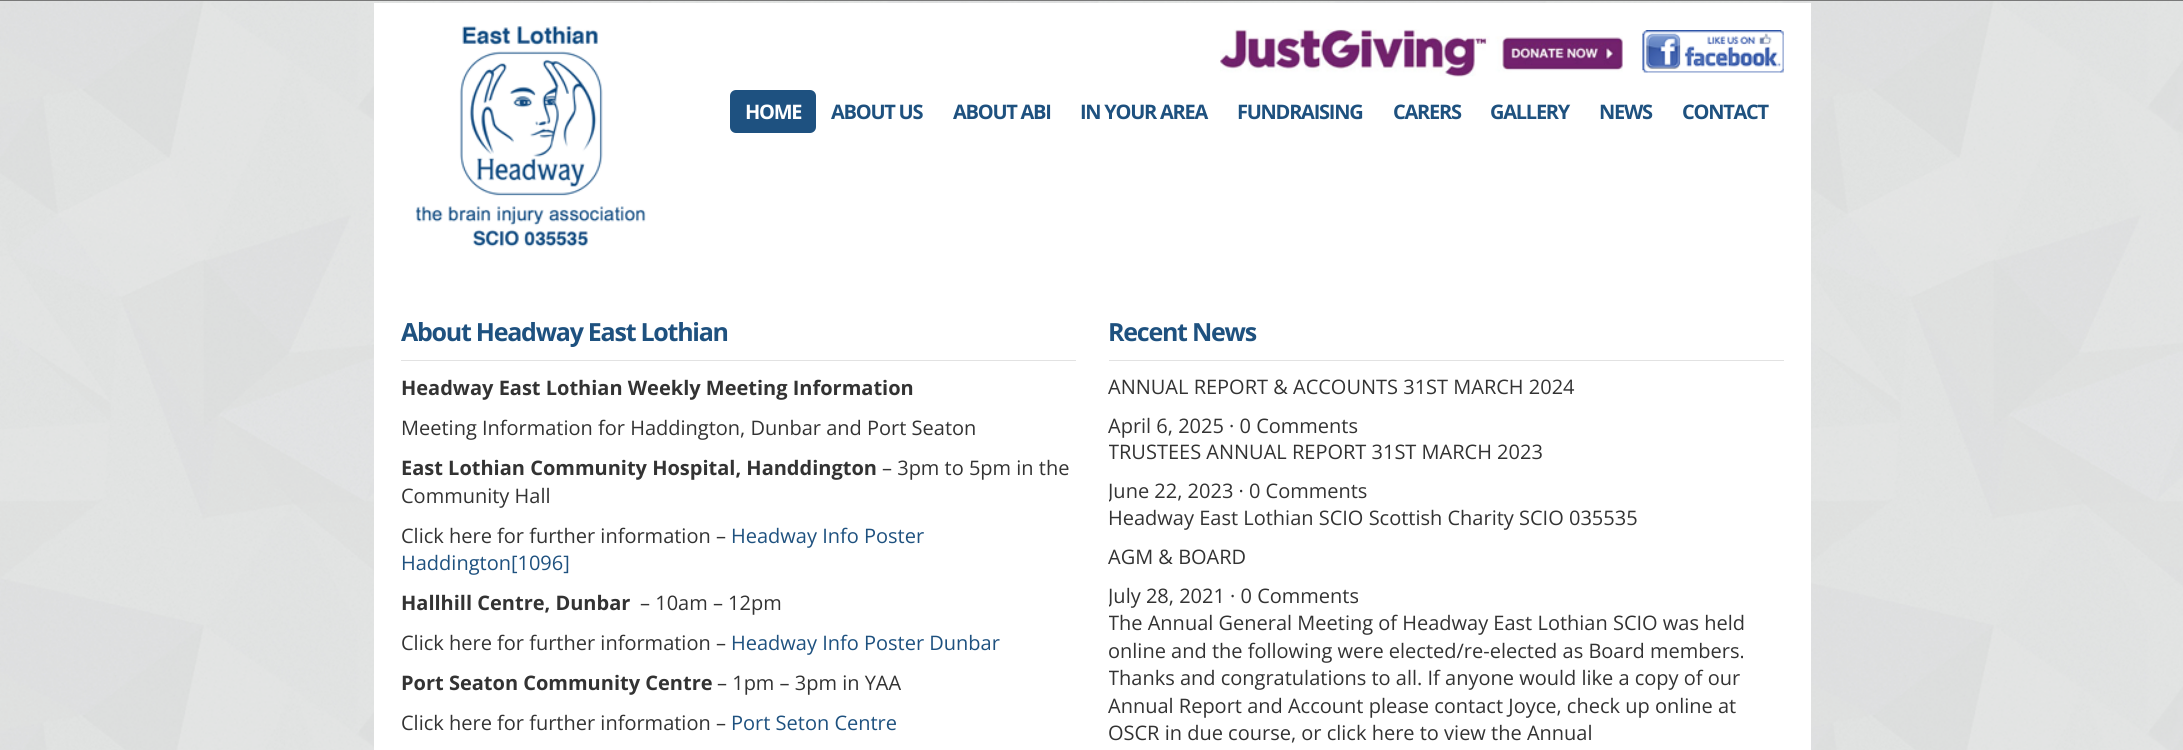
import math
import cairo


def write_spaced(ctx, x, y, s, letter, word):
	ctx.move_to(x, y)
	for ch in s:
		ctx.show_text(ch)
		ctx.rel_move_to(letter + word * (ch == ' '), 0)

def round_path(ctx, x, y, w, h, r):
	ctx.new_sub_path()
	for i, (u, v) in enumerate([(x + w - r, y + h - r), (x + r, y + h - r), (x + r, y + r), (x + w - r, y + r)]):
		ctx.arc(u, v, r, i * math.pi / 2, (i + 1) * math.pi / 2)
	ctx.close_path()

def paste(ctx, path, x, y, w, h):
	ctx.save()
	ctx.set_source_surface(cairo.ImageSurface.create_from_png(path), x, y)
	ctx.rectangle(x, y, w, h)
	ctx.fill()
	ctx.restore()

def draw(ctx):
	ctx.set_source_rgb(1, 1, 1)
	ctx.paint()
	paste(ctx, 'media/1.png', 0, 1, 2183, 749)
	ctx.set_source_rgb(0.475, 0.475, 0.475)
	ctx.rectangle(0, 0, 2183, 1)
	ctx.fill()
	ctx.set_source_rgb(1, 1, 1)
	ctx.rectangle(374, 3, 1437, 747)
	ctx.fill()
	paste(ctx, 'media/2.png', 415, 26, 231, 221)
	paste(ctx, 'media/3.png', 1220, 29, 403, 48)
	paste(ctx, 'media/4.png', 1642, 30, 142, 43)
	ctx.set_source_rgb(0.118, 0.318, 0.502)
	round_path(ctx, 730, 90, 86, 43, 6)
	ctx.fill()
	ctx.select_font_face('Open Sans', cairo.FONT_SLANT_NORMAL, cairo.FONT_WEIGHT_BOLD)
	ctx.set_font_size(20)
	ctx.set_source_rgb(1, 1, 1)
	write_spaced(ctx, 745, 119, 'HOME', -1.25, 0)
	ctx.set_source_rgb(0.118, 0.318, 0.498)
	for x, y, s in [
		(831, 119, 'ABOUT US'),
		(953, 119, 'ABOUT ABI'),
		(1080, 119, 'IN YOUR AREA'),
		(1237, 119, 'FUNDRAISING'),
		(1393, 119, 'CARERS'),
		(1490, 119, 'GALLERY'),
		(1599, 119, 'NEWS'),
		(1682, 119, 'CONTACT'),
	]:
		write_spaced(ctx, x, y, s, -1.25, 0)
	ctx.set_source_rgb(0.886, 0.886, 0.886)
	ctx.rectangle(401, 360, 675, 1)
	ctx.fill()
	ctx.set_font_size(25)
	ctx.set_source_rgb(0.118, 0.318, 0.498)
	write_spaced(ctx, 401, 341, 'About Headway East Lothian', -1.25, 0)
	ctx.set_font_size(20)
	ctx.set_source_rgb(0.2, 0.2, 0.2)
	ctx.move_to(401, 395)
	ctx.show_text('Headway East Lothian Weekly Meeting Information')
	ctx.select_font_face('Open Sans')
	ctx.move_to(401, 435)
	ctx.show_text('Meeting Information for Haddington, Dunbar and Port Seaton')
	ctx.select_font_face('Open Sans', cairo.FONT_SLANT_NORMAL, cairo.FONT_WEIGHT_BOLD)
	ctx.move_to(401, 475)
	ctx.show_text('East Lothian Community Hospital, Handdington')
	ctx.select_font_face('Open Sans')
	for x, y, s in [
		(882, 475, '– 3pm to 5pm in the'),
		(401, 503, 'Community Hall'),
		(401, 543, 'Click here for further information –'),
	]:
		ctx.move_to(x, y)
		ctx.show_text(s)
	ctx.set_source_rgb(0.118, 0.318, 0.498)
	ctx.move_to(731, 543)
	ctx.show_text('Headway Info Poster')
	ctx.move_to(401, 570)
	ctx.show_text('Haddington[1096]')
	ctx.select_font_face('Open Sans', cairo.FONT_SLANT_NORMAL, cairo.FONT_WEIGHT_BOLD)
	ctx.set_source_rgb(0.2, 0.2, 0.2)
	ctx.move_to(401, 610)
	ctx.show_text('Hallhill Centre, Dunbar')
	ctx.select_font_face('Open Sans')
	ctx.move_to(640, 610)
	ctx.show_text('– 10am – 12pm')
	ctx.move_to(401, 650)
	ctx.show_text('Click here for further information –')
	ctx.set_source_rgb(0.118, 0.318, 0.498)
	ctx.move_to(731, 650)
	ctx.show_text('Headway Info Poster Dunbar')
	ctx.select_font_face('Open Sans', cairo.FONT_SLANT_NORMAL, cairo.FONT_WEIGHT_BOLD)
	ctx.set_source_rgb(0.2, 0.2, 0.2)
	ctx.move_to(401, 690)
	ctx.show_text('Port Seaton Community Centre')
	ctx.select_font_face('Open Sans')
	ctx.move_to(717, 690)
	ctx.show_text('– 1pm – 3pm in YAA')
	ctx.move_to(401, 730)
	ctx.show_text('Click here for further information –')
	ctx.set_source_rgb(0.118, 0.318, 0.498)
	ctx.move_to(731, 730)
	ctx.show_text('Port Seton Centre')
	ctx.set_source_rgb(0.886, 0.886, 0.886)
	ctx.rectangle(1109, 360, 675, 1)
	ctx.fill()
	ctx.select_font_face('Open Sans', cairo.FONT_SLANT_NORMAL, cairo.FONT_WEIGHT_BOLD)
	ctx.set_font_size(25)
	ctx.set_source_rgb(0.118, 0.318, 0.498)
	write_spaced(ctx, 1108, 341, 'Recent News', -1.25, 0)
	ctx.select_font_face('Open Sans')
	ctx.set_font_size(20)
	ctx.set_source_rgb(0.2, 0.2, 0.2)
	ctx.move_to(1108, 394)
	ctx.show_text('ANNUAL REPORT & ACCOUNTS 31ST MARCH 2024')
	ctx.move_to(1108, 433)
	ctx.show_text('April 6, 2025 · 0 Comments')
	ctx.save()
	ctx.rectangle(1109, 374, 675, 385)
	ctx.clip()
	ctx.move_to(1108, 459)
	ctx.show_text('TRUSTEES ANNUAL REPORT 31ST MARCH 2023')
	ctx.move_to(1108, 498)
	ctx.show_text('June 22, 2023 · 0 Comments')
	ctx.restore()
	ctx.move_to(1108, 525)
	ctx.show_text('Headway East Lothian SCIO Scottish Charity SCIO 035535')
	ctx.move_to(1108, 564)
	ctx.show_text('AGM & BOARD')
	ctx.save()
	ctx.rectangle(1109, 374, 675, 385)
	ctx.clip()
	ctx.move_to(1108, 603)
	ctx.show_text('July 28, 2021 · 0 Comments')
	ctx.move_to(1108, 630)
	ctx.show_text('The Annual General Meeting of Headway East Lothian SCIO was held')
	ctx.restore()
	ctx.move_to(1108, 658)
	ctx.show_text('online and the following were elected/re-elected as Board members.')
	ctx.save()
	ctx.rectangle(1109, 374, 675, 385)
	ctx.clip()
	ctx.move_to(1108, 685)
	ctx.show_text('Thanks and congratulations to all. If anyone would like a copy of our')
	ctx.restore()
	ctx.move_to(1108, 713)
	ctx.show_text('Annual Report and Account please contact Joyce, check up online at')
	ctx.move_to(1108, 740)
	ctx.show_text('OSCR in due course, or click here to view the Annual')


surface = cairo.ImageSurface(cairo.FORMAT_RGB24, 2183, 750)
ctx = cairo.Context(surface)
options = cairo.FontOptions()
options.set_hint_metrics(cairo.HINT_METRICS_OFF)
options.set_hint_style(cairo.HINT_STYLE_NONE)
ctx.set_font_options(options)
ctx.set_miter_limit(4)
draw(ctx)
surface.write_to_png('image.png')
